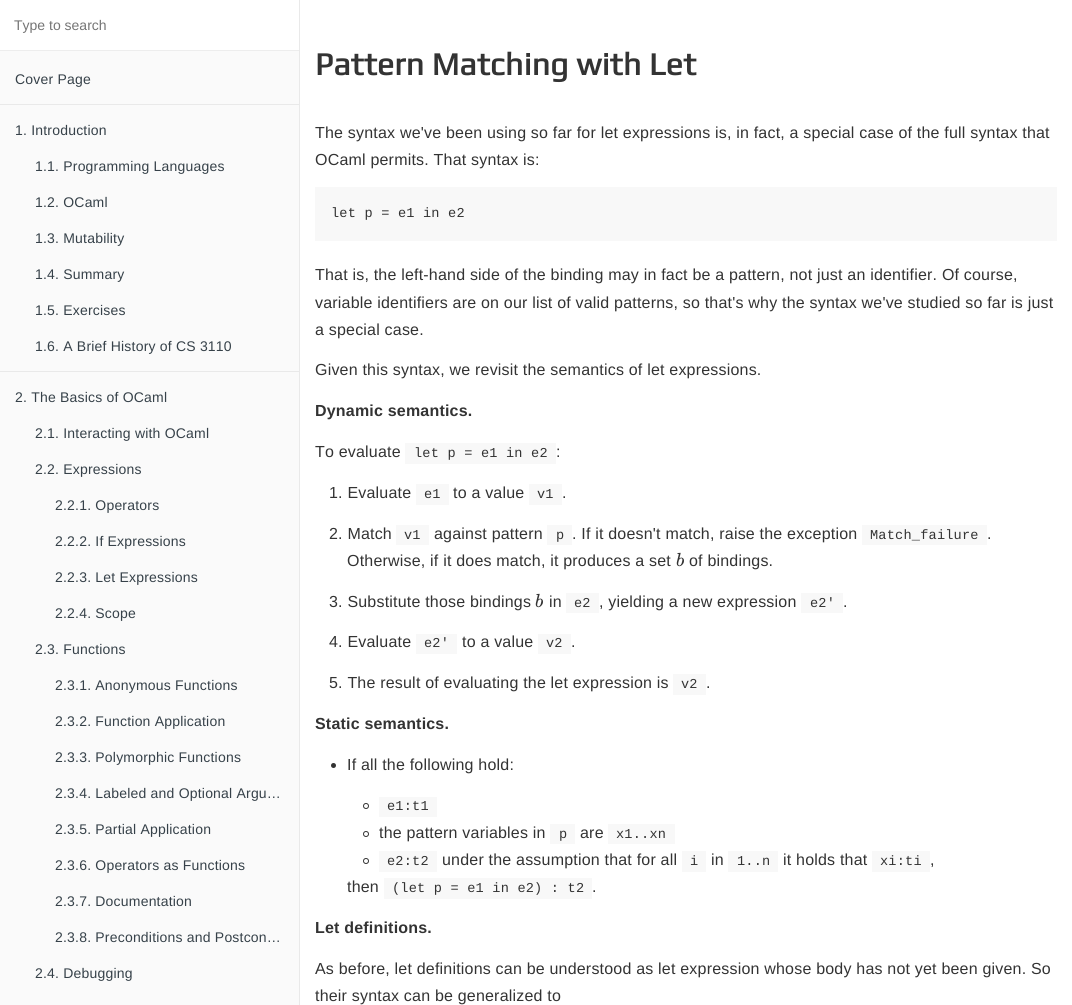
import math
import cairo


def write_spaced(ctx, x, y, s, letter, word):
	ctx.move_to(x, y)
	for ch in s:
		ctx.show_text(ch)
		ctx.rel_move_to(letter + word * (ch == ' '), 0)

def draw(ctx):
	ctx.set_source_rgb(1, 1, 1)
	ctx.paint()
	ctx.set_source_rgb(0.98, 0.98, 0.98)
	ctx.rectangle(0, 51, 299, 954)
	ctx.fill()
	ctx.set_source_rgb(0.914, 0.914, 0.914)
	ctx.rectangle(299, 0, 1, 1005)
	ctx.fill()
	ctx.set_source_rgb(0.929, 0.929, 0.929)
	ctx.rectangle(0, 50, 299, 1)
	ctx.fill()
	ctx.select_font_face('Liberation Sans')
	ctx.set_font_size(14)
	ctx.set_source_rgb(0.459, 0.459, 0.459)
	ctx.move_to(14, 30)
	ctx.show_text('Type to search')
	ctx.set_source_rgb(0.212, 0.255, 0.286)
	write_spaced(ctx, 15, 84, 'Cover Page', 0.2, 0)
	ctx.set_source_rgb(0.914, 0.914, 0.914)
	ctx.rectangle(0, 104, 299, 1)
	ctx.fill()
	ctx.set_source_rgb(0.212, 0.255, 0.286)
	for x, y, s in [
		(15, 135, '1. Introduction'),
		(35, 171, '1.1. Programming Languages'),
		(35, 207, '1.2. OCaml'),
		(35, 243, '1.3. Mutability'),
		(35, 279, '1.4. Summary'),
		(35, 315, '1.5. Exercises'),
		(35, 351, '1.6. A Brief History of CS 3110'),
	]:
		write_spaced(ctx, x, y, s, 0.2, 0)
	ctx.set_source_rgb(0.914, 0.914, 0.914)
	ctx.rectangle(0, 371, 299, 1)
	ctx.fill()
	ctx.set_source_rgb(0.212, 0.255, 0.286)
	for x, y, s in [
		(15, 402, '2. The Basics of OCaml'),
		(35, 438, '2.1. Interacting with OCaml'),
		(35, 474, '2.2. Expressions'),
		(55, 510, '2.2.1. Operators'),
		(55, 546, '2.2.2. If Expressions'),
		(55, 582, '2.2.3. Let Expressions'),
		(55, 618, '2.2.4. Scope'),
		(35, 654, '2.3. Functions'),
		(55, 690, '2.3.1. Anonymous Functions'),
		(55, 726, '2.3.2. Function Application'),
		(55, 762, '2.3.3. Polymorphic Functions'),
		(55, 798, '2.3.4. Labeled and Optional Argu…'),
		(55, 834, '2.3.5. Partial Application'),
		(55, 870, '2.3.6. Operators as Functions'),
		(55, 906, '2.3.7. Documentation'),
		(55, 942, '2.3.8. Preconditions and Postcon…'),
		(35, 978, '2.4. Debugging'),
	]:
		write_spaced(ctx, x, y, s, 0.2, 0)
	ctx.select_font_face('Play', cairo.FONT_SLANT_NORMAL, cairo.FONT_WEIGHT_BOLD)
	ctx.set_font_size(32)
	ctx.set_source_rgb(0.2, 0.2, 0.2)
	write_spaced(ctx, 315, 75, 'Pattern Matching with Let', 0.2, 0)
	ctx.select_font_face('Liberation Sans')
	ctx.set_font_size(16)
	write_spaced(ctx, 315, 138, 'The syntax we\'ve been using so far for let expressions is, in fact, a special case of the full syntax that', 0.2, 0)
	write_spaced(ctx, 315, 165, 'OCaml permits. That syntax is:', 0.2, 0)
	ctx.set_source_rgb(0.969, 0.969, 0.969)
	ctx.rectangle(315, 187, 742, 54)
	ctx.fill()
	ctx.select_font_face('Liberation Mono')
	ctx.set_font_size(13.6)
	ctx.set_source_rgb(0.2, 0.2, 0.2)
	write_spaced(ctx, 331, 217, 'let p = e1 in e2', 0.2, 0)
	ctx.select_font_face('Liberation Sans')
	ctx.set_font_size(16)
	for x, y, s in [
		(315, 280, 'That is, the left-hand side of the binding may in fact be a pattern, not just an identifier. Of course,'),
		(315, 308, 'variable identifiers are on our list of valid patterns, so that\'s why the syntax we\'ve studied so far is just'),
		(315, 335, 'a special case.'),
		(315, 375, 'Given this syntax, we revisit the semantics of let expressions.'),
	]:
		write_spaced(ctx, x, y, s, 0.2, 0)
	ctx.select_font_face('Liberation Sans', cairo.FONT_SLANT_NORMAL, cairo.FONT_WEIGHT_BOLD)
	write_spaced(ctx, 315, 416, 'Dynamic semantics.', 0.2, 0)
	ctx.select_font_face('Liberation Sans')
	write_spaced(ctx, 315, 457, 'To evaluate', 0.2, 0)
	ctx.set_source_rgb(0.969, 0.969, 0.969)
	ctx.rectangle(405, 443, 151, 21)
	ctx.fill()
	ctx.select_font_face('Liberation Mono')
	ctx.set_font_size(13.6)
	ctx.set_source_rgb(0.2, 0.2, 0.2)
	write_spaced(ctx, 414, 457, 'let p = e1 in e2', 0.2, 0)
	ctx.select_font_face('Liberation Sans')
	ctx.set_font_size(16)
	write_spaced(ctx, 556, 457, ':', 0.2, 0)
	write_spaced(ctx, 329, 498, '1. Evaluate', 0.2, 0)
	ctx.set_source_rgb(0.969, 0.969, 0.969)
	ctx.rectangle(416, 484, 33, 21)
	ctx.fill()
	ctx.select_font_face('Liberation Mono')
	ctx.set_font_size(13.6)
	ctx.set_source_rgb(0.2, 0.2, 0.2)
	write_spaced(ctx, 424, 498, 'e1', 0.2, 0)
	ctx.select_font_face('Liberation Sans')
	ctx.set_font_size(16)
	write_spaced(ctx, 453, 498, 'to a value', 0.2, 0)
	ctx.set_source_rgb(0.969, 0.969, 0.969)
	ctx.rectangle(529, 484, 33, 21)
	ctx.fill()
	ctx.select_font_face('Liberation Mono')
	ctx.set_font_size(13.6)
	ctx.set_source_rgb(0.2, 0.2, 0.2)
	write_spaced(ctx, 537, 498, 'v1', 0.2, 0)
	ctx.select_font_face('Liberation Sans')
	ctx.set_font_size(16)
	write_spaced(ctx, 562, 498, '.', 0.2, 0)
	write_spaced(ctx, 329, 539, '2. Match', 0.2, 0)
	ctx.set_source_rgb(0.969, 0.969, 0.969)
	ctx.rectangle(396, 525, 33, 20)
	ctx.fill()
	ctx.select_font_face('Liberation Mono')
	ctx.set_font_size(13.6)
	ctx.set_source_rgb(0.2, 0.2, 0.2)
	write_spaced(ctx, 404, 539, 'v1', 0.2, 0)
	ctx.select_font_face('Liberation Sans')
	ctx.set_font_size(16)
	write_spaced(ctx, 434, 539, 'against pattern', 0.2, 0)
	ctx.set_source_rgb(0.969, 0.969, 0.969)
	ctx.rectangle(547, 525, 25, 20)
	ctx.fill()
	ctx.select_font_face('Liberation Mono')
	ctx.set_font_size(13.6)
	ctx.set_source_rgb(0.2, 0.2, 0.2)
	write_spaced(ctx, 556, 539, 'p', 0.2, 0)
	ctx.select_font_face('Liberation Sans')
	ctx.set_font_size(16)
	write_spaced(ctx, 572, 539, '. If it doesn\'t match, raise the exception', 0.2, 0)
	ctx.set_source_rgb(0.969, 0.969, 0.969)
	ctx.rectangle(862, 525, 125, 20)
	ctx.fill()
	ctx.select_font_face('Liberation Mono')
	ctx.set_font_size(13.6)
	ctx.set_source_rgb(0.2, 0.2, 0.2)
	write_spaced(ctx, 870, 539, 'Match_failure', 0.2, 0)
	ctx.select_font_face('Liberation Sans')
	ctx.set_font_size(16)
	write_spaced(ctx, 987, 539, '.', 0.2, 0)
	write_spaced(ctx, 347, 566, 'Otherwise, if it does match, it produces a set', 0.2, 0)
	ctx.select_font_face('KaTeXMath', cairo.FONT_SLANT_ITALIC)
	ctx.set_font_size(19)
	write_spaced(ctx, 676, 566, 'b', 0.2, 0)
	ctx.select_font_face('Liberation Sans')
	ctx.set_font_size(16)
	write_spaced(ctx, 689, 566, 'of bindings.', 0.2, 0)
	write_spaced(ctx, 329, 607, '3. Substitute those bindings', 0.2, 0)
	ctx.select_font_face('KaTeXMath', cairo.FONT_SLANT_ITALIC)
	ctx.set_font_size(19)
	write_spaced(ctx, 535, 607, 'b', 0.2, 0)
	ctx.select_font_face('Liberation Sans')
	ctx.set_font_size(16)
	write_spaced(ctx, 549, 607, 'in', 0.2, 0)
	ctx.set_source_rgb(0.969, 0.969, 0.969)
	ctx.rectangle(566, 593, 33, 20)
	ctx.fill()
	ctx.select_font_face('Liberation Mono')
	ctx.set_font_size(13.6)
	ctx.set_source_rgb(0.2, 0.2, 0.2)
	write_spaced(ctx, 574, 607, 'e2', 0.2, 0)
	ctx.select_font_face('Liberation Sans')
	ctx.set_font_size(16)
	write_spaced(ctx, 599, 607, ', yielding a new expression', 0.2, 0)
	ctx.set_source_rgb(0.969, 0.969, 0.969)
	ctx.rectangle(801, 593, 42, 20)
	ctx.fill()
	ctx.select_font_face('Liberation Mono')
	ctx.set_font_size(13.6)
	ctx.set_source_rgb(0.2, 0.2, 0.2)
	write_spaced(ctx, 810, 607, 'e2\'', 0.2, 0)
	ctx.select_font_face('Liberation Sans')
	ctx.set_font_size(16)
	write_spaced(ctx, 843, 607, '.', 0.2, 0)
	write_spaced(ctx, 329, 647, '4. Evaluate', 0.2, 0)
	ctx.set_source_rgb(0.969, 0.969, 0.969)
	ctx.rectangle(416, 634, 41, 20)
	ctx.fill()
	ctx.select_font_face('Liberation Mono')
	ctx.set_font_size(13.6)
	ctx.set_source_rgb(0.2, 0.2, 0.2)
	write_spaced(ctx, 424, 647, 'e2\'', 0.2, 0)
	ctx.select_font_face('Liberation Sans')
	ctx.set_font_size(16)
	write_spaced(ctx, 462, 647, 'to a value', 0.2, 0)
	ctx.set_source_rgb(0.969, 0.969, 0.969)
	ctx.rectangle(538, 634, 33, 20)
	ctx.fill()
	ctx.select_font_face('Liberation Mono')
	ctx.set_font_size(13.6)
	ctx.set_source_rgb(0.2, 0.2, 0.2)
	write_spaced(ctx, 546, 647, 'v2', 0.2, 0)
	ctx.select_font_face('Liberation Sans')
	ctx.set_font_size(16)
	write_spaced(ctx, 571, 647, '.', 0.2, 0)
	write_spaced(ctx, 329, 688, '5. The result of evaluating the let expression is', 0.2, 0)
	ctx.set_source_rgb(0.969, 0.969, 0.969)
	ctx.rectangle(673, 674, 33, 21)
	ctx.fill()
	ctx.select_font_face('Liberation Mono')
	ctx.set_font_size(13.6)
	ctx.set_source_rgb(0.2, 0.2, 0.2)
	write_spaced(ctx, 681, 688, 'v2', 0.2, 0)
	ctx.select_font_face('Liberation Sans')
	ctx.set_font_size(16)
	write_spaced(ctx, 706, 688, '.', 0.2, 0)
	ctx.select_font_face('Liberation Sans', cairo.FONT_SLANT_NORMAL, cairo.FONT_WEIGHT_BOLD)
	write_spaced(ctx, 315, 729, 'Static semantics.', 0.2, 0)
	ctx.new_path()
	ctx.arc(333.5, 765.5, 2.5, 0, 2 * math.pi)
	ctx.fill()
	ctx.select_font_face('Liberation Sans')
	write_spaced(ctx, 347, 770, 'If all the following hold:', 0.2, 0)
	ctx.new_path()
	ctx.arc(366, 806, 2.5, 0, 2 * math.pi)
	ctx.set_line_width(1)
	ctx.stroke()
	ctx.set_source_rgb(0.969, 0.969, 0.969)
	ctx.rectangle(379, 797, 58, 20)
	ctx.fill()
	ctx.select_font_face('Liberation Mono')
	ctx.set_font_size(13.6)
	ctx.set_source_rgb(0.2, 0.2, 0.2)
	write_spaced(ctx, 387, 810, 'e1:t1', 0.2, 0)
	ctx.new_path()
	ctx.arc(366, 834, 2.5, 0, 2 * math.pi)
	ctx.stroke()
	ctx.select_font_face('Liberation Sans')
	ctx.set_font_size(16)
	write_spaced(ctx, 379, 838, 'the pattern variables in', 0.2, 0)
	ctx.set_source_rgb(0.969, 0.969, 0.969)
	ctx.rectangle(550, 824, 25, 20)
	ctx.fill()
	ctx.select_font_face('Liberation Mono')
	ctx.set_font_size(13.6)
	ctx.set_source_rgb(0.2, 0.2, 0.2)
	write_spaced(ctx, 559, 838, 'p', 0.2, 0)
	ctx.select_font_face('Liberation Sans')
	ctx.set_font_size(16)
	write_spaced(ctx, 580, 838, 'are', 0.2, 0)
	ctx.set_source_rgb(0.969, 0.969, 0.969)
	ctx.rectangle(608, 824, 67, 20)
	ctx.fill()
	ctx.select_font_face('Liberation Mono')
	ctx.set_font_size(13.6)
	ctx.set_source_rgb(0.2, 0.2, 0.2)
	write_spaced(ctx, 616, 838, 'x1..xn', 0.2, 0)
	ctx.new_path()
	ctx.arc(366, 861, 2.5, 0, 2 * math.pi)
	ctx.stroke()
	ctx.set_source_rgb(0.969, 0.969, 0.969)
	ctx.rectangle(379, 851, 58, 21)
	ctx.fill()
	ctx.set_source_rgb(0.2, 0.2, 0.2)
	write_spaced(ctx, 387, 865, 'e2:t2', 0.2, 0)
	ctx.select_font_face('Liberation Sans')
	ctx.set_font_size(16)
	write_spaced(ctx, 442, 865, 'under the assumption that for all', 0.2, 0)
	ctx.set_source_rgb(0.969, 0.969, 0.969)
	ctx.rectangle(682, 851, 24, 21)
	ctx.fill()
	ctx.select_font_face('Liberation Mono')
	ctx.set_font_size(13.6)
	ctx.set_source_rgb(0.2, 0.2, 0.2)
	write_spaced(ctx, 690, 865, 'i', 0.2, 0)
	ctx.select_font_face('Liberation Sans')
	ctx.set_font_size(16)
	write_spaced(ctx, 711, 865, 'in', 0.2, 0)
	ctx.set_source_rgb(0.969, 0.969, 0.969)
	ctx.rectangle(728, 851, 50, 21)
	ctx.fill()
	ctx.select_font_face('Liberation Mono')
	ctx.set_font_size(13.6)
	ctx.set_source_rgb(0.2, 0.2, 0.2)
	write_spaced(ctx, 737, 865, '1..n', 0.2, 0)
	ctx.select_font_face('Liberation Sans')
	ctx.set_font_size(16)
	write_spaced(ctx, 783, 865, 'it holds that', 0.2, 0)
	ctx.set_source_rgb(0.969, 0.969, 0.969)
	ctx.rectangle(872, 851, 58, 21)
	ctx.fill()
	ctx.select_font_face('Liberation Mono')
	ctx.set_font_size(13.6)
	ctx.set_source_rgb(0.2, 0.2, 0.2)
	write_spaced(ctx, 880, 865, 'xi:ti', 0.2, 0)
	ctx.select_font_face('Liberation Sans')
	ctx.set_font_size(16)
	write_spaced(ctx, 930, 865, ',', 0.2, 0)
	write_spaced(ctx, 347, 892, 'then', 0.2, 0)
	ctx.set_source_rgb(0.969, 0.969, 0.969)
	ctx.rectangle(384, 878, 208, 21)
	ctx.fill()
	ctx.select_font_face('Liberation Mono')
	ctx.set_font_size(13.6)
	ctx.set_source_rgb(0.2, 0.2, 0.2)
	write_spaced(ctx, 392, 892, '(let p = e1 in e2) : t2', 0.2, 0)
	ctx.select_font_face('Liberation Sans')
	ctx.set_font_size(16)
	write_spaced(ctx, 592, 892, '.', 0.2, 0)
	ctx.select_font_face('Liberation Sans', cairo.FONT_SLANT_NORMAL, cairo.FONT_WEIGHT_BOLD)
	write_spaced(ctx, 315, 933, 'Let definitions.', 0.2, 0)
	ctx.select_font_face('Liberation Sans')
	write_spaced(ctx, 315, 974, 'As before, let definitions can be understood as let expression whose body has not yet been given. So', 0.2, 0)
	write_spaced(ctx, 315, 1001, 'their syntax can be generalized to', 0.2, 0)


surface = cairo.ImageSurface(cairo.FORMAT_RGB24, 1072, 1005)
ctx = cairo.Context(surface)
options = cairo.FontOptions()
options.set_hint_metrics(cairo.HINT_METRICS_OFF)
options.set_hint_style(cairo.HINT_STYLE_NONE)
ctx.set_font_options(options)
ctx.set_miter_limit(4)
draw(ctx)
surface.write_to_png('image.png')
